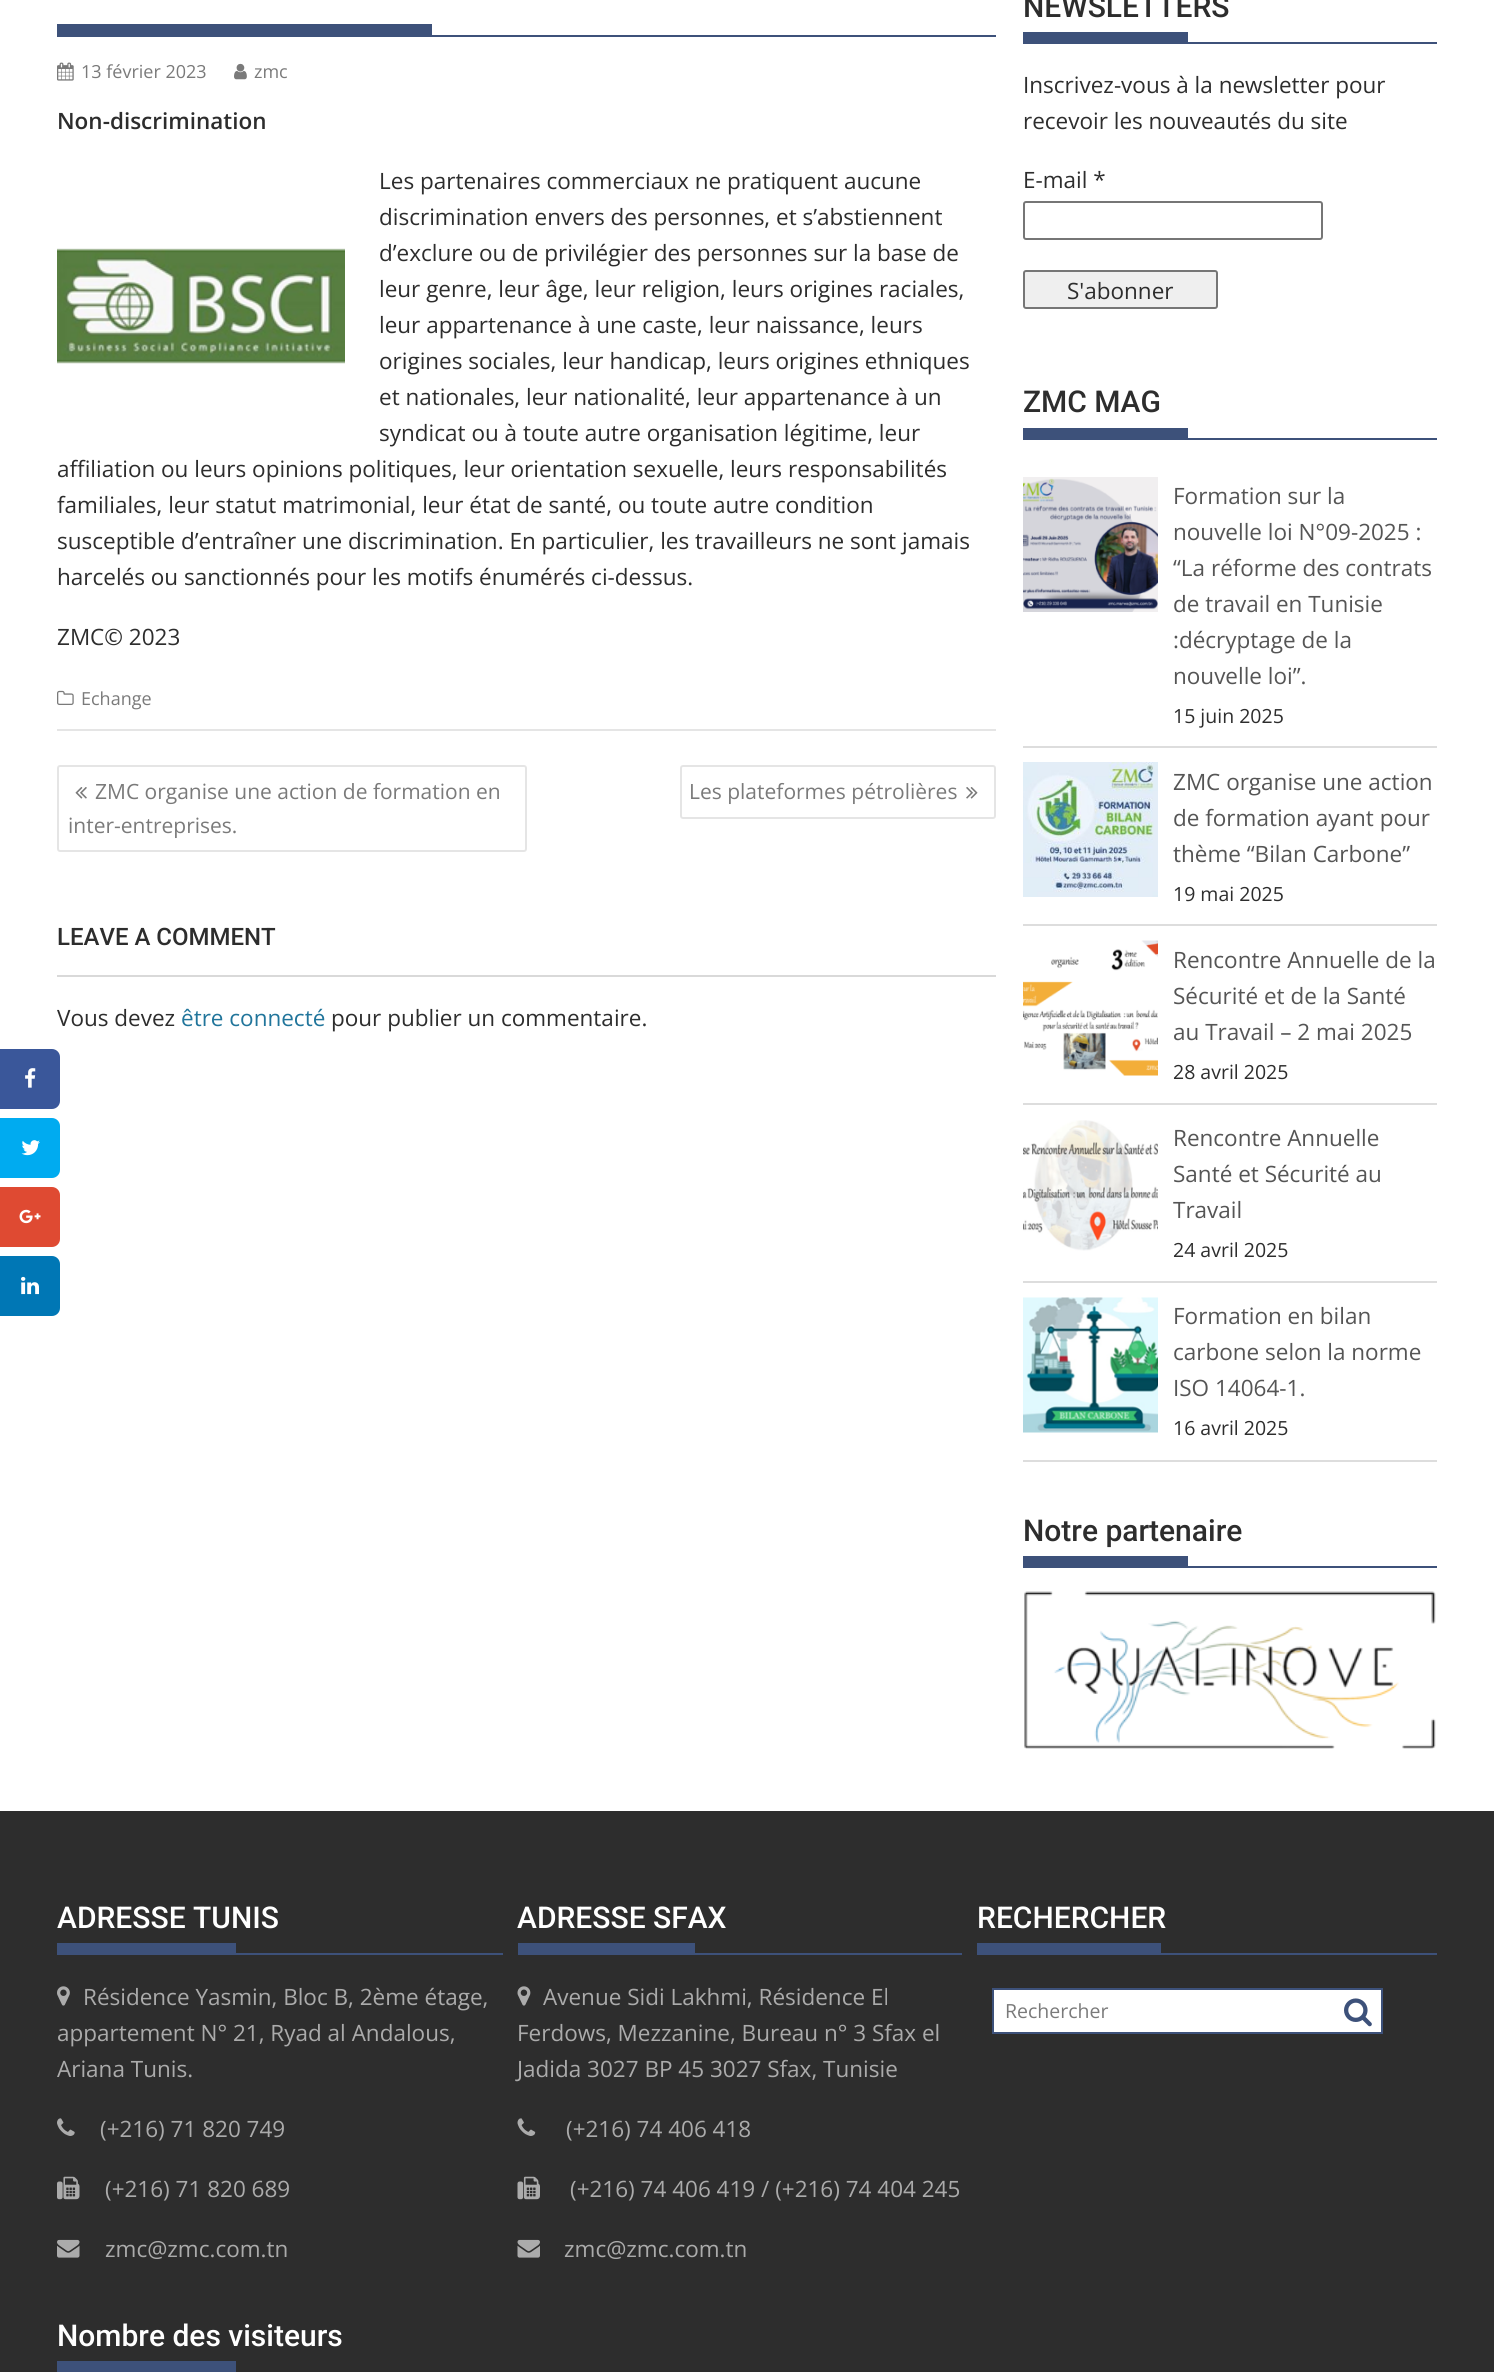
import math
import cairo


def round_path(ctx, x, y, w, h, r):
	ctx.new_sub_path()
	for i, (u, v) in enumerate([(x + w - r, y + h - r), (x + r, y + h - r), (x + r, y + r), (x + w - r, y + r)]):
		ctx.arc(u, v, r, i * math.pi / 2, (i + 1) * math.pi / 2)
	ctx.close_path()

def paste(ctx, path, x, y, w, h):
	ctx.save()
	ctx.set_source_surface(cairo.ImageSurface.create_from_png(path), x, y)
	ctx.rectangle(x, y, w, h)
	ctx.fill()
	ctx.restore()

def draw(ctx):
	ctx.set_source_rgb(1, 1, 1)
	ctx.paint()
	ctx.set_source_rgb(0.227, 0.341, 0.604)
	ctx.new_path()
	ctx.move_to(1.5, 1050.5)
	ctx.line_to(52, 1050.5)
	ctx.curve_to(55.5, 1050.5, 58.5, 1053.5, 58.5, 1057)
	ctx.line_to(58.5, 1101)
	ctx.curve_to(58.5, 1104.5, 55.5, 1107.5, 52, 1107.5)
	ctx.line_to(1.5, 1107.5)
	ctx.close_path()
	ctx.fill_preserve()
	ctx.set_line_width(3)
	ctx.stroke()
	paste(ctx, 'media/1.png', 25, 1068, 11, 20)
	ctx.set_source_rgb(0, 0.671, 0.941)
	ctx.new_path()
	ctx.move_to(1.5, 1119.5)
	ctx.line_to(52, 1119.5)
	ctx.curve_to(55.5, 1119.5, 58.5, 1122.5, 58.5, 1126)
	ctx.line_to(58.5, 1170)
	ctx.curve_to(58.5, 1173.5, 55.5, 1176.5, 52, 1176.5)
	ctx.line_to(1.5, 1176.5)
	ctx.close_path()
	ctx.fill_preserve()
	ctx.stroke()
	paste(ctx, 'media/2.png', 21, 1140, 19, 16)
	ctx.set_source_rgb(0.875, 0.29, 0.196)
	ctx.new_path()
	ctx.move_to(1.5, 1188.5)
	ctx.line_to(52, 1188.5)
	ctx.curve_to(55.5, 1188.5, 58.5, 1191.5, 58.5, 1195)
	ctx.line_to(58.5, 1239)
	ctx.curve_to(58.5, 1242.5, 55.5, 1245.5, 52, 1245.5)
	ctx.line_to(1.5, 1245.5)
	ctx.close_path()
	ctx.fill_preserve()
	ctx.stroke()
	paste(ctx, 'media/3.png', 19, 1209, 22, 15)
	ctx.set_source_rgb(0, 0.467, 0.71)
	ctx.new_path()
	ctx.move_to(1.5, 1257.5)
	ctx.line_to(52, 1257.5)
	ctx.curve_to(55.5, 1257.5, 58.5, 1260.5, 58.5, 1264)
	ctx.line_to(58.5, 1308)
	ctx.curve_to(58.5, 1311.5, 55.5, 1314.5, 52, 1314.5)
	ctx.line_to(1.5, 1314.5)
	ctx.close_path()
	ctx.fill_preserve()
	ctx.stroke()
	paste(ctx, 'media/4.png', 21, 1276, 18, 19)
	ctx.set_source_rgb(0.898, 0.898, 0.898)
	ctx.rectangle(57, 729, 939, 2)
	ctx.fill()
	ctx.set_source_rgb(0.239, 0.318, 0.478)
	ctx.rectangle(57, 35, 939, 2)
	ctx.rectangle(57, 24, 375, 11)
	ctx.fill()
	paste(ctx, 'media/5.png', 57, 62, 17, 19)
	ctx.select_font_face('Open Sans')
	ctx.set_font_size(18)
	ctx.set_source_rgb(0.478, 0.478, 0.478)
	ctx.move_to(81, 78)
	ctx.show_text('13 février 2023')
	paste(ctx, 'media/6.png', 234, 63, 13, 17)
	ctx.move_to(254, 78)
	ctx.show_text('zmc')
	ctx.select_font_face('Open Sans SemiBold')
	ctx.set_font_size(22.5)
	ctx.set_source_rgb(0.176, 0.176, 0.176)
	ctx.move_to(57, 129)
	ctx.show_text('Non-discrimination')
	ctx.select_font_face('Open Sans')
	for x, y, s in [
		(379, 189, 'Les partenaires commerciaux ne pratiquent aucune'),
		(379, 225, 'discrimination envers des personnes, et s’abstiennent'),
		(379, 261, 'd’exclure ou de privilégier des personnes sur la base de'),
		(379, 297, 'leur genre, leur âge, leur religion, leurs origines raciales,'),
		(379, 333, 'leur appartenance à une caste, leur naissance, leurs'),
		(379, 369, 'origines sociales, leur handicap, leurs origines ethniques'),
		(379, 405, 'et nationales, leur nationalité, leur appartenance à un'),
		(379, 441, 'syndicat ou à toute autre organisation légitime, leur'),
		(57, 477, 'affiliation ou leurs opinions politiques, leur orientation sexuelle, leurs responsabilités'),
		(57, 513, 'familiales, leur statut matrimonial, leur état de santé, ou toute autre condition'),
		(57, 549, 'susceptible d’entraîner une discrimination. En particulier, les travailleurs ne sont jamais'),
		(57, 585, 'harcelés ou sanctionnés pour les motifs énumérés ci-dessus.'),
	]:
		ctx.move_to(x, y)
		ctx.show_text(s)
	paste(ctx, 'media/7.png', 57, 248, 288, 116)
	ctx.move_to(57, 645)
	ctx.show_text('ZMC© 2023')
	paste(ctx, 'media/8.png', 57, 690, 17, 15)
	ctx.set_font_size(18)
	ctx.set_source_rgb(0.478, 0.478, 0.478)
	ctx.move_to(81, 705)
	ctx.show_text('Echange')
	round_path(ctx, 58, 766, 468, 85, 2)
	ctx.set_source_rgb(0.898, 0.898, 0.898)
	ctx.set_line_width(2)
	ctx.stroke()
	paste(ctx, 'media/9.png', 75, 787, 12, 12)
	ctx.set_font_size(21)
	ctx.set_source_rgb(0.478, 0.478, 0.478)
	ctx.move_to(95, 799)
	ctx.show_text('ZMC organise une action de formation en')
	ctx.move_to(68, 833)
	ctx.show_text('inter-entreprises.')
	round_path(ctx, 681, 766, 314, 52, 2)
	ctx.set_source_rgb(0.898, 0.898, 0.898)
	ctx.stroke()
	ctx.set_source_rgb(0.478, 0.478, 0.478)
	ctx.move_to(689, 799)
	ctx.show_text('Les plateformes pétrolières')
	paste(ctx, 'media/10.png', 966, 787, 12, 12)
	ctx.set_source_rgb(0.851, 0.851, 0.851)
	ctx.rectangle(57, 975, 939, 2)
	ctx.fill()
	ctx.select_font_face('Roboto Medium')
	ctx.set_font_size(24)
	ctx.set_source_rgb(0.176, 0.176, 0.176)
	ctx.move_to(57, 945)
	ctx.show_text('LEAVE A COMMENT')
	ctx.select_font_face('Open Sans')
	ctx.set_font_size(22.5)
	ctx.move_to(57, 1026)
	ctx.show_text('Vous devez')
	ctx.set_source_rgb(0.129, 0.459, 0.608)
	ctx.move_to(181, 1026)
	ctx.show_text('être connecté')
	ctx.set_source_rgb(0.176, 0.176, 0.176)
	ctx.move_to(331, 1026)
	ctx.show_text('pour publier un commentaire.')
	ctx.set_source_rgb(0.239, 0.318, 0.478)
	ctx.rectangle(1023, 42, 414, 2)
	ctx.fill()
	ctx.select_font_face('Roboto Medium')
	ctx.set_font_size(30)
	ctx.set_source_rgb(0.176, 0.176, 0.176)
	ctx.move_to(1023, 17)
	ctx.show_text('NEWSLETTERS')
	ctx.set_source_rgb(0.239, 0.318, 0.478)
	ctx.rectangle(1023, 32, 165, 10)
	ctx.fill()
	ctx.select_font_face('Open Sans')
	ctx.set_font_size(22.5)
	ctx.set_source_rgb(0.176, 0.176, 0.176)
	for x, y, s in [
		(1023, 93, 'Inscrivez-vous à la newsletter pour'),
		(1023, 129, 'recevoir les nouveautés du site'),
		(1023, 188, 'E-mail *'),
	]:
		ctx.move_to(x, y)
		ctx.show_text(s)
	round_path(ctx, 1024, 202, 298, 37, 2)
	ctx.set_source_rgb(0.463, 0.463, 0.463)
	ctx.stroke()
	ctx.set_source_rgb(0.937, 0.937, 0.937)
	round_path(ctx, 1024, 271, 193, 37, 2)
	ctx.fill_preserve()
	ctx.set_source_rgb(0.463, 0.463, 0.463)
	ctx.stroke()
	ctx.set_source_rgb(0.176, 0.176, 0.176)
	ctx.move_to(1067, 299)
	ctx.show_text('S\'abonner')
	ctx.set_source_rgb(0.239, 0.318, 0.478)
	ctx.rectangle(1023, 438, 414, 2)
	ctx.fill()
	ctx.select_font_face('Roboto Medium')
	ctx.set_font_size(30)
	ctx.set_source_rgb(0.176, 0.176, 0.176)
	ctx.move_to(1023, 412)
	ctx.show_text('ZMC MAG')
	ctx.set_source_rgb(0.239, 0.318, 0.478)
	ctx.rectangle(1023, 428, 165, 10)
	ctx.fill()
	ctx.set_source_rgb(0.867, 0.867, 0.867)
	ctx.rectangle(1023, 746, 414, 2)
	ctx.fill()
	paste(ctx, 'media/11.png', 1023, 477, 135, 135)
	ctx.select_font_face('Open Sans')
	ctx.set_font_size(22.5)
	ctx.set_source_rgb(0.333, 0.333, 0.333)
	for x, y, s in [
		(1173, 504, 'Formation sur la'),
		(1173, 540, 'nouvelle loi N°09-2025 :'),
		(1173, 576, '“La réforme des contrats'),
		(1173, 612, 'de travail en Tunisie'),
		(1173, 648, ':décryptage de la'),
		(1173, 684, 'nouvelle loi”.'),
	]:
		ctx.move_to(x, y)
		ctx.show_text(s)
	ctx.set_font_size(19.5)
	ctx.set_source_rgb(0.176, 0.176, 0.176)
	ctx.move_to(1173, 723)
	ctx.show_text('15 juin 2025')
	ctx.set_source_rgb(0.867, 0.867, 0.867)
	ctx.rectangle(1023, 924, 414, 2)
	ctx.fill()
	paste(ctx, 'media/12.png', 1023, 762, 135, 135)
	ctx.set_font_size(22.5)
	ctx.set_source_rgb(0.333, 0.333, 0.333)
	for x, y, s in [
		(1173, 790, 'ZMC organise une action'),
		(1173, 826, 'de formation ayant pour'),
		(1173, 862, 'thème “Bilan Carbone”'),
	]:
		ctx.move_to(x, y)
		ctx.show_text(s)
	ctx.set_font_size(19.5)
	ctx.set_source_rgb(0.176, 0.176, 0.176)
	ctx.move_to(1173, 901)
	ctx.show_text('19 mai 2025')
	ctx.set_source_rgb(0.867, 0.867, 0.867)
	ctx.rectangle(1023, 1103, 414, 2)
	ctx.fill()
	paste(ctx, 'media/13.png', 1023, 940, 135, 136)
	ctx.set_font_size(22.5)
	ctx.set_source_rgb(0.333, 0.333, 0.333)
	for x, y, s in [
		(1173, 968, 'Rencontre Annuelle de la'),
		(1173, 1004, 'Sécurité et de la Santé'),
		(1173, 1040, 'au Travail – 2 mai 2025'),
	]:
		ctx.move_to(x, y)
		ctx.show_text(s)
	ctx.set_font_size(19.5)
	ctx.set_source_rgb(0.176, 0.176, 0.176)
	ctx.move_to(1173, 1079)
	ctx.show_text('28 avril 2025')
	ctx.set_source_rgb(0.867, 0.867, 0.867)
	ctx.rectangle(1023, 1281, 414, 2)
	ctx.fill()
	paste(ctx, 'media/14.png', 1023, 1120, 135, 131)
	ctx.set_font_size(22.5)
	ctx.set_source_rgb(0.333, 0.333, 0.333)
	for x, y, s in [
		(1173, 1146, 'Rencontre Annuelle'),
		(1173, 1182, 'Santé et Sécurité au'),
		(1173, 1218, 'Travail'),
	]:
		ctx.move_to(x, y)
		ctx.show_text(s)
	ctx.set_font_size(19.5)
	ctx.set_source_rgb(0.176, 0.176, 0.176)
	ctx.move_to(1173, 1257)
	ctx.show_text('24 avril 2025')
	ctx.set_source_rgb(0.867, 0.867, 0.867)
	ctx.rectangle(1023, 1460, 414, 2)
	ctx.fill()
	paste(ctx, 'media/15.png', 1023, 1297, 135, 136)
	ctx.set_font_size(22.5)
	ctx.set_source_rgb(0.333, 0.333, 0.333)
	for x, y, s in [
		(1173, 1324, 'Formation en bilan'),
		(1173, 1360, 'carbone selon la norme'),
		(1173, 1396, 'ISO 14064-1.'),
	]:
		ctx.move_to(x, y)
		ctx.show_text(s)
	ctx.set_font_size(19.5)
	ctx.set_source_rgb(0.176, 0.176, 0.176)
	ctx.move_to(1173, 1435)
	ctx.show_text('16 avril 2025')
	ctx.set_source_rgb(0.239, 0.318, 0.478)
	ctx.rectangle(1023, 1566, 414, 2)
	ctx.fill()
	ctx.select_font_face('Roboto Medium')
	ctx.set_font_size(30)
	ctx.set_source_rgb(0.176, 0.176, 0.176)
	ctx.move_to(1023, 1541)
	ctx.show_text('Notre partenaire')
	ctx.set_source_rgb(0.239, 0.318, 0.478)
	ctx.rectangle(1023, 1556, 165, 10)
	ctx.fill()
	paste(ctx, 'media/16.png', 1024, 1591, 412, 158)
	ctx.set_source_rgb(0.176, 0.176, 0.176)
	ctx.rectangle(0, 1811, 1494, 561)
	ctx.fill()
	ctx.set_source_rgb(0.239, 0.318, 0.478)
	ctx.rectangle(57, 1953, 446, 2)
	ctx.fill()
	ctx.set_source_rgb(1, 1, 1)
	ctx.move_to(57, 1928)
	ctx.show_text('ADRESSE TUNIS')
	ctx.set_source_rgb(0.239, 0.318, 0.478)
	ctx.rectangle(57, 1943, 179, 10)
	ctx.fill()
	paste(ctx, 'media/17.png', 57, 1986, 13, 20)
	ctx.select_font_face('Open Sans')
	ctx.set_font_size(22.5)
	ctx.set_source_rgb(0.671, 0.671, 0.671)
	for x, y, s in [
		(83, 2005, 'Résidence Yasmin, Bloc B, 2ème étage,'),
		(57, 2041, 'appartement N° 21, Ryad al Andalous,'),
		(57, 2077, 'Ariana Tunis.'),
	]:
		ctx.move_to(x, y)
		ctx.show_text(s)
	paste(ctx, 'media/18.png', 57, 2118, 18, 18)
	ctx.move_to(100, 2137)
	ctx.show_text('(+216) 71 820 749')
	paste(ctx, 'media/19.png', 57, 2176, 23, 24)
	ctx.move_to(105, 2197)
	ctx.show_text('(+216) 71 820 689')
	paste(ctx, 'media/20.png', 57, 2239, 23, 19)
	ctx.move_to(105, 2257)
	ctx.show_text('zmc@zmc.com.tn')
	ctx.select_font_face('Roboto Medium')
	ctx.set_font_size(30)
	ctx.set_source_rgb(1, 1, 1)
	ctx.move_to(57, 2346)
	ctx.show_text('Nombre des visiteurs')
	ctx.set_source_rgb(0.239, 0.318, 0.478)
	ctx.rectangle(57, 2361, 179, 11)
	ctx.fill()
	ctx.rectangle(518, 1953, 444, 2)
	ctx.fill()
	ctx.set_source_rgb(1, 1, 1)
	ctx.move_to(517, 1928)
	ctx.show_text('ADRESSE SFAX')
	ctx.set_source_rgb(0.239, 0.318, 0.478)
	ctx.rectangle(518, 1943, 177, 10)
	ctx.fill()
	paste(ctx, 'media/21.png', 517, 1986, 14, 20)
	ctx.select_font_face('Open Sans')
	ctx.set_font_size(22.5)
	ctx.set_source_rgb(0.671, 0.671, 0.671)
	for x, y, s in [
		(543, 2005, 'Avenue Sidi Lakhmi, Résidence El'),
		(517, 2041, 'Ferdows, Mezzanine, Bureau n° 3 Sfax el'),
		(517, 2077, 'Jadida 3027 BP 45 3027 Sfax, Tunisie'),
	]:
		ctx.move_to(x, y)
		ctx.show_text(s)
	paste(ctx, 'media/22.png', 517, 2118, 19, 18)
	ctx.move_to(566, 2137)
	ctx.show_text('(+216) 74 406 418')
	paste(ctx, 'media/23.png', 517, 2176, 23, 24)
	ctx.move_to(570, 2197)
	ctx.show_text('(+216) 74 406 419 / (+216) 74 404 245')
	paste(ctx, 'media/24.png', 517, 2239, 23, 19)
	ctx.move_to(564, 2257)
	ctx.show_text('zmc@zmc.com.tn')
	ctx.set_source_rgb(0.239, 0.318, 0.478)
	ctx.rectangle(977, 1953, 460, 2)
	ctx.fill()
	ctx.select_font_face('Roboto Medium')
	ctx.set_font_size(30)
	ctx.set_source_rgb(1, 1, 1)
	ctx.move_to(977, 1928)
	ctx.show_text('RECHERCHER')
	ctx.set_source_rgb(0.239, 0.318, 0.478)
	ctx.rectangle(977, 1943, 184, 10)
	ctx.fill()
	ctx.set_source_rgb(1, 1, 1)
	ctx.rectangle(993, 1989, 389, 44)
	ctx.fill_preserve()
	ctx.set_source_rgb(0.239, 0.318, 0.478)
	ctx.stroke()
	ctx.select_font_face('Open Sans')
	ctx.set_font_size(19.5)
	ctx.set_source_rgb(0.478, 0.478, 0.478)
	ctx.move_to(1005, 2018)
	ctx.show_text('Rechercher')
	paste(ctx, 'media/25.png', 1344, 1998, 28, 29)


surface = cairo.ImageSurface(cairo.FORMAT_RGB24, 1494, 2372)
ctx = cairo.Context(surface)
options = cairo.FontOptions()
options.set_hint_metrics(cairo.HINT_METRICS_OFF)
options.set_hint_style(cairo.HINT_STYLE_NONE)
ctx.set_font_options(options)
ctx.set_miter_limit(4)
draw(ctx)
surface.write_to_png('image.png')
